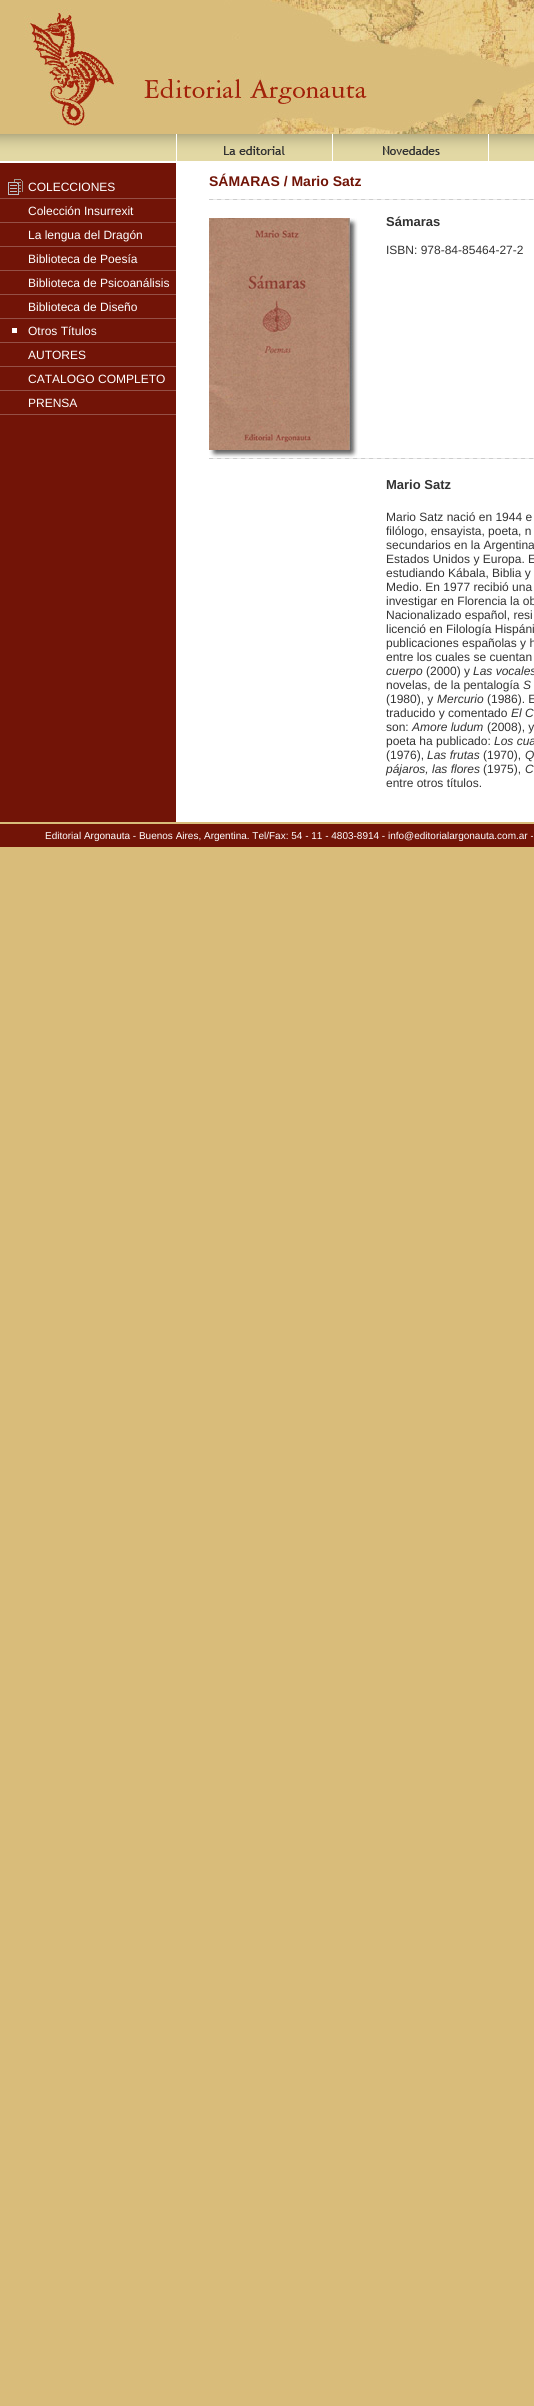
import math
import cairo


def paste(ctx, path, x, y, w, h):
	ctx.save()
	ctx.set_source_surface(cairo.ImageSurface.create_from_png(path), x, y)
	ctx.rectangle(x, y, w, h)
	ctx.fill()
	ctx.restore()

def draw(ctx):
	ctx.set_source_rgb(0.851, 0.737, 0.478)
	ctx.paint()
	ctx.set_source_rgb(1, 1, 1)
	ctx.rectangle(176, 134, 313, 27)
	ctx.fill()
	paste(ctx, 'media/1.png', 0, 0, 534, 134)
	paste(ctx, 'media/2.png', 0, 134, 176, 27)
	paste(ctx, 'media/3.png', 177, 134, 155, 27)
	paste(ctx, 'media/4.png', 333, 134, 155, 27)
	paste(ctx, 'media/5.png', 489, 134, 45, 27)
	ctx.rectangle(0, 161, 534, 2)
	ctx.rectangle(176, 163, 358, 659)
	ctx.fill()
	ctx.set_source_rgb(0.447, 0.082, 0.031)
	ctx.rectangle(0, 163, 176, 659)
	ctx.fill()
	paste(ctx, 'media/6.png', 8, 179, 15, 16)
	ctx.select_font_face('Liberation Sans')
	ctx.set_font_size(12)
	ctx.set_source_rgb(1, 1, 1)
	ctx.move_to(28, 191)
	ctx.show_text('COLECCIONES')
	ctx.set_source_rgb(0.584, 0.314, 0.275)
	ctx.rectangle(0, 198, 176, 1)
	ctx.fill()
	ctx.set_source_rgb(1, 1, 1)
	ctx.move_to(28, 215)
	ctx.show_text('Colección Insurrexit')
	ctx.set_source_rgb(0.584, 0.314, 0.275)
	ctx.rectangle(0, 222, 176, 1)
	ctx.fill()
	ctx.set_source_rgb(1, 1, 1)
	ctx.move_to(28, 239)
	ctx.show_text('La lengua del Dragón')
	ctx.set_source_rgb(0.584, 0.314, 0.275)
	ctx.rectangle(0, 246, 176, 1)
	ctx.fill()
	ctx.set_source_rgb(1, 1, 1)
	ctx.move_to(28, 263)
	ctx.show_text('Biblioteca de Poesía')
	ctx.set_source_rgb(0.584, 0.314, 0.275)
	ctx.rectangle(0, 270, 176, 1)
	ctx.fill()
	ctx.set_source_rgb(1, 1, 1)
	ctx.move_to(28, 287)
	ctx.show_text('Biblioteca de Psicoanálisis')
	ctx.set_source_rgb(0.584, 0.314, 0.275)
	ctx.rectangle(0, 294, 176, 1)
	ctx.fill()
	ctx.set_source_rgb(1, 1, 1)
	ctx.move_to(28, 311)
	ctx.show_text('Biblioteca de Diseño')
	ctx.set_source_rgb(0.584, 0.314, 0.275)
	ctx.rectangle(0, 318, 176, 1)
	ctx.fill()
	ctx.set_source_rgb(1, 1, 1)
	ctx.rectangle(12, 328, 5, 5)
	ctx.fill()
	ctx.move_to(28, 335)
	ctx.show_text('Otros Títulos')
	ctx.set_source_rgb(0.584, 0.314, 0.275)
	ctx.rectangle(0, 342, 176, 1)
	ctx.fill()
	ctx.set_source_rgb(1, 1, 1)
	ctx.move_to(28, 359)
	ctx.show_text('AUTORES')
	ctx.set_source_rgb(0.584, 0.314, 0.275)
	ctx.rectangle(0, 366, 176, 1)
	ctx.fill()
	ctx.set_source_rgb(1, 1, 1)
	ctx.move_to(28, 383)
	ctx.show_text('CATALOGO COMPLETO')
	ctx.set_source_rgb(0.584, 0.314, 0.275)
	ctx.rectangle(0, 390, 176, 1)
	ctx.fill()
	ctx.set_source_rgb(1, 1, 1)
	ctx.move_to(28, 407)
	ctx.show_text('PRENSA')
	ctx.set_source_rgb(0.584, 0.314, 0.275)
	ctx.rectangle(0, 414, 176, 1)
	ctx.fill()
	ctx.select_font_face('Liberation Sans', cairo.FONT_SLANT_NORMAL, cairo.FONT_WEIGHT_BOLD)
	ctx.set_font_size(14)
	ctx.set_source_rgb(0.443, 0.082, 0.031)
	ctx.move_to(209, 186)
	ctx.show_text('SÁMARAS / Mario Satz')
	paste(ctx, 'media/7.png', 209, 199, 325, 1)
	paste(ctx, 'media/8.png', 209, 218, 149, 240)
	ctx.set_font_size(13)
	ctx.set_source_rgb(0.2, 0.2, 0.2)
	ctx.move_to(386, 226)
	ctx.show_text('Sámaras')
	ctx.select_font_face('Liberation Sans')
	ctx.set_font_size(12)
	ctx.move_to(386, 254)
	ctx.show_text('ISBN: 978-84-85464-27-2')
	paste(ctx, 'media/7.png', 209, 458, 325, 1)
	ctx.select_font_face('Liberation Sans', cairo.FONT_SLANT_NORMAL, cairo.FONT_WEIGHT_BOLD)
	ctx.set_font_size(13)
	ctx.move_to(386, 489)
	ctx.show_text('Mario Satz')
	ctx.select_font_face('Liberation Sans')
	ctx.set_font_size(12)
	for x, y, s in [
		(386, 521, 'Mario Satz nació en 1944 e'),
		(386, 535, 'filólogo, ensayista, poeta, n'),
		(386, 549, 'secundarios en la Argentina'),
		(386, 563, 'Estados Unidos y Europa. E'),
		(386, 577, 'estudiando Kábala, Biblia y'),
		(386, 591, 'Medio. En 1977 recibió una'),
		(386, 605, 'investigar en Florencia la ob'),
		(386, 619, 'Nacionalizado español, resi'),
		(386, 633, 'licenció en Filología Hispáni'),
		(386, 647, 'publicaciones españolas y h'),
		(386, 661, 'entre los cuales se cuentan'),
	]:
		ctx.move_to(x, y)
		ctx.show_text(s)
	ctx.select_font_face('Liberation Sans', cairo.FONT_SLANT_ITALIC)
	ctx.move_to(386, 675)
	ctx.show_text('cuerpo')
	ctx.select_font_face('Liberation Sans')
	ctx.move_to(426, 675)
	ctx.show_text('(2000) y')
	ctx.select_font_face('Liberation Sans', cairo.FONT_SLANT_ITALIC)
	ctx.move_to(473, 675)
	ctx.show_text('Las vocales')
	ctx.select_font_face('Liberation Sans')
	ctx.move_to(386, 689)
	ctx.show_text('novelas, de la pentalogía')
	ctx.select_font_face('Liberation Sans', cairo.FONT_SLANT_ITALIC)
	ctx.move_to(523, 689)
	ctx.show_text('S')
	ctx.select_font_face('Liberation Sans')
	ctx.move_to(386, 703)
	ctx.show_text('(1980), y')
	ctx.select_font_face('Liberation Sans', cairo.FONT_SLANT_ITALIC)
	ctx.move_to(437, 703)
	ctx.show_text('Mercurio')
	ctx.select_font_face('Liberation Sans')
	ctx.move_to(487, 703)
	ctx.show_text('(1986). E')
	ctx.move_to(386, 717)
	ctx.show_text('traducido y comentado')
	ctx.select_font_face('Liberation Sans', cairo.FONT_SLANT_ITALIC)
	ctx.move_to(511, 717)
	ctx.show_text('El C')
	ctx.select_font_face('Liberation Sans')
	ctx.move_to(386, 731)
	ctx.show_text('son:')
	ctx.select_font_face('Liberation Sans', cairo.FONT_SLANT_ITALIC)
	ctx.move_to(412, 731)
	ctx.show_text('Amore ludum')
	ctx.select_font_face('Liberation Sans')
	ctx.move_to(487, 731)
	ctx.show_text('(2008), y')
	ctx.move_to(386, 745)
	ctx.show_text('poeta ha publicado:')
	ctx.select_font_face('Liberation Sans', cairo.FONT_SLANT_ITALIC)
	ctx.move_to(494, 745)
	ctx.show_text('Los cua')
	ctx.select_font_face('Liberation Sans')
	ctx.move_to(386, 759)
	ctx.show_text('(1976),')
	ctx.select_font_face('Liberation Sans', cairo.FONT_SLANT_ITALIC)
	ctx.move_to(427, 759)
	ctx.show_text('Las frutas')
	ctx.select_font_face('Liberation Sans')
	ctx.move_to(483, 759)
	ctx.show_text('(1970),')
	ctx.select_font_face('Liberation Sans', cairo.FONT_SLANT_ITALIC)
	ctx.move_to(525, 759)
	ctx.show_text('Q')
	ctx.move_to(386, 773)
	ctx.show_text('pájaros, las flores')
	ctx.select_font_face('Liberation Sans')
	ctx.move_to(483, 773)
	ctx.show_text('(1975),')
	ctx.select_font_face('Liberation Sans', cairo.FONT_SLANT_ITALIC)
	ctx.move_to(525, 773)
	ctx.show_text('C')
	ctx.select_font_face('Liberation Sans')
	ctx.move_to(386, 787)
	ctx.show_text('entre otros títulos.')
	ctx.set_source_rgb(0.447, 0.082, 0.031)
	ctx.rectangle(0, 824, 534, 23)
	ctx.fill()
	ctx.set_font_size(10)
	ctx.set_source_rgb(1, 1, 1)
	ctx.move_to(45, 839)
	ctx.show_text('Editorial Argonauta - Buenos Aires, Argentina. Tel/Fax: 54 - 11 - 4803-8914 - info@editorialargonauta.com.ar -')


surface = cairo.ImageSurface(cairo.FORMAT_RGB24, 534, 2406)
ctx = cairo.Context(surface)
options = cairo.FontOptions()
options.set_hint_metrics(cairo.HINT_METRICS_OFF)
options.set_hint_style(cairo.HINT_STYLE_NONE)
ctx.set_font_options(options)
ctx.set_miter_limit(4)
draw(ctx)
surface.write_to_png('image.png')
